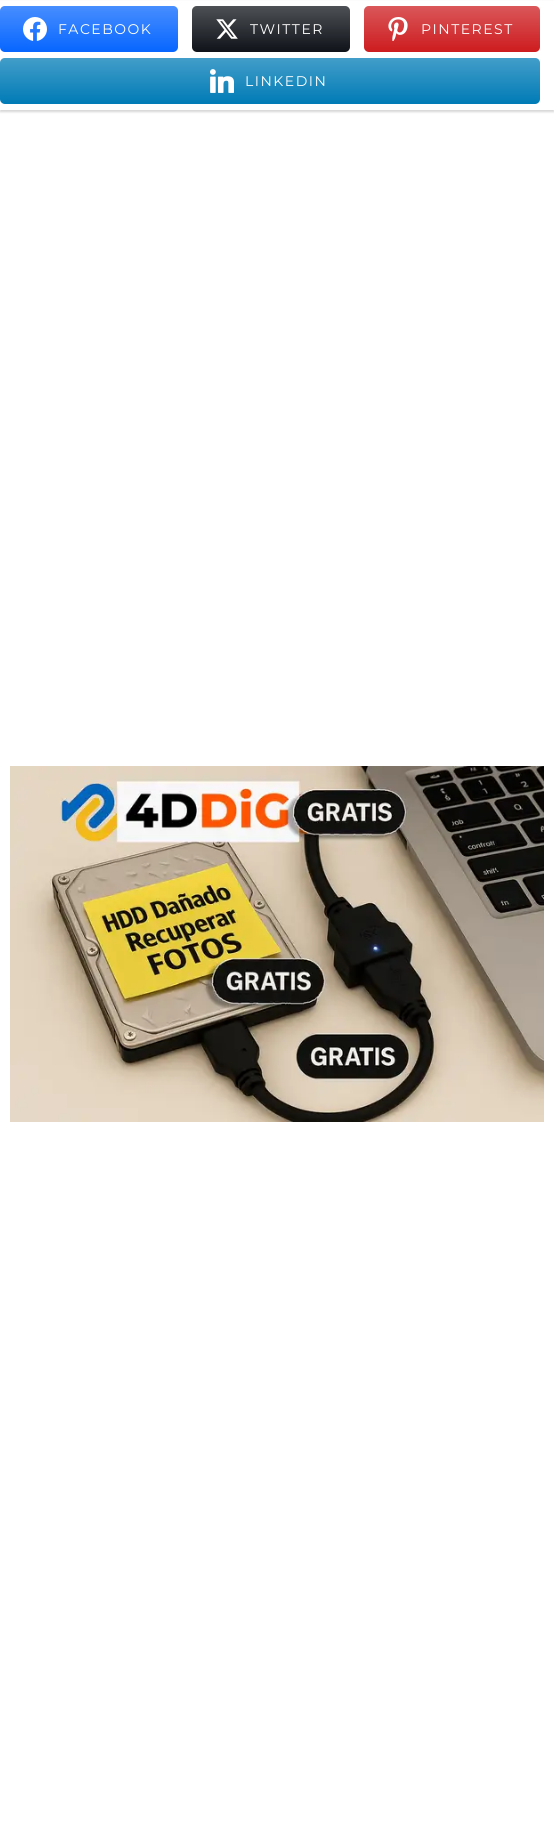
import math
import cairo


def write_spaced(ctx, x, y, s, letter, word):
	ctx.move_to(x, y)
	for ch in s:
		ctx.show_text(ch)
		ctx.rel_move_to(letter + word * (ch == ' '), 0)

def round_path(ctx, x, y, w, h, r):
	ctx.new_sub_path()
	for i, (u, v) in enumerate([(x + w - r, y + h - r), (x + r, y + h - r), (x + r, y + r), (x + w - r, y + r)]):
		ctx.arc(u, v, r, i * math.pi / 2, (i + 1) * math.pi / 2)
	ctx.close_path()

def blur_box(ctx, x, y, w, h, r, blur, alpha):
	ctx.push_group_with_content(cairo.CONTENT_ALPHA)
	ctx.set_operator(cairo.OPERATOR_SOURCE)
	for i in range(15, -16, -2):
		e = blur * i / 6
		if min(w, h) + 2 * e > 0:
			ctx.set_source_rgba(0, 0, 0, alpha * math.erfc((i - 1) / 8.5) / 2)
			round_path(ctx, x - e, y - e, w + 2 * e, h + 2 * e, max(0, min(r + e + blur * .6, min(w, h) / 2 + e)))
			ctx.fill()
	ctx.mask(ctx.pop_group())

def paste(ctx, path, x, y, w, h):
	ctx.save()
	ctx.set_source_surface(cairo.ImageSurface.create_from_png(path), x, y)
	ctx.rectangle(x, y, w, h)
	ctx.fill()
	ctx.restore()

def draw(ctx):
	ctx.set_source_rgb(1, 1, 1)
	ctx.paint()
	ctx.set_source_rgb(0.196, 0.196, 0.196)
	blur_box(ctx, 0, 2, 554, 110, 0, 1, 0.2)
	ctx.set_source_rgb(1, 1, 1)
	ctx.rectangle(0, 1, 554, 109)
	ctx.fill()
	ctx.set_source_rgb(0.031, 0.4, 1)
	round_path(ctx, 0, 6, 178, 46, 5)
	ctx.fill()
	gradient = cairo.LinearGradient(89, 52, 89, 6)
	gradient.add_color_stop_rgba(0, 1, 1, 1, 0)
	gradient.add_color_stop_rgba(1, 1, 1, 1, 0.26)
	ctx.set_source(gradient)
	round_path(ctx, 0, 6, 178, 46, 5)
	ctx.fill()
	paste(ctx, 'media/1.png', 23, 17, 24, 24)
	ctx.select_font_face('Montserrat')
	ctx.set_font_size(14)
	ctx.set_source_rgb(1, 1, 1)
	write_spaced(ctx, 58, 34, 'FACEBOOK', 1.5, 0)
	ctx.set_source_rgb(0.059, 0.078, 0.098)
	round_path(ctx, 192, 6, 158, 46, 5)
	ctx.fill()
	gradient = cairo.LinearGradient(271, 52, 271, 6)
	gradient.add_color_stop_rgba(0, 1, 1, 1, 0)
	gradient.add_color_stop_rgba(1, 1, 1, 1, 0.26)
	ctx.set_source(gradient)
	round_path(ctx, 192, 6, 158, 46, 5)
	ctx.fill()
	paste(ctx, 'media/2.png', 216, 19, 22, 20)
	ctx.set_source_rgb(1, 1, 1)
	write_spaced(ctx, 250, 34, 'TWITTER', 1.5, 0)
	ctx.set_source_rgb(0.804, 0.11, 0.122)
	round_path(ctx, 364, 6, 176, 46, 5)
	ctx.fill()
	gradient = cairo.LinearGradient(452, 52, 452, 6)
	gradient.add_color_stop_rgba(0, 1, 1, 1, 0)
	gradient.add_color_stop_rgba(1, 1, 1, 1, 0.26)
	ctx.set_source(gradient)
	round_path(ctx, 364, 6, 176, 46, 5)
	ctx.fill()
	paste(ctx, 'media/3.png', 388, 17, 20, 24)
	ctx.set_source_rgb(1, 1, 1)
	write_spaced(ctx, 421, 34, 'PINTEREST', 1.5, 0)
	ctx.set_source_rgb(0, 0.482, 0.714)
	round_path(ctx, 0, 58, 540, 46, 5)
	ctx.fill()
	gradient = cairo.LinearGradient(270, 104, 270, 58)
	gradient.add_color_stop_rgba(0, 1, 1, 1, 0)
	gradient.add_color_stop_rgba(1, 1, 1, 1, 0.26)
	ctx.set_source(gradient)
	round_path(ctx, 0, 58, 540, 46, 5)
	ctx.fill()
	paste(ctx, 'media/4.png', 210, 69, 24, 24)
	ctx.set_source_rgb(1, 1, 1)
	write_spaced(ctx, 245, 86, 'LINKEDIN', 1.5, 0)
	paste(ctx, 'media/5.png', 10, 766, 534, 356)


surface = cairo.ImageSurface(cairo.FORMAT_RGB24, 554, 1831)
ctx = cairo.Context(surface)
options = cairo.FontOptions()
options.set_hint_metrics(cairo.HINT_METRICS_OFF)
options.set_hint_style(cairo.HINT_STYLE_NONE)
ctx.set_font_options(options)
ctx.set_miter_limit(4)
draw(ctx)
surface.write_to_png('image.png')
